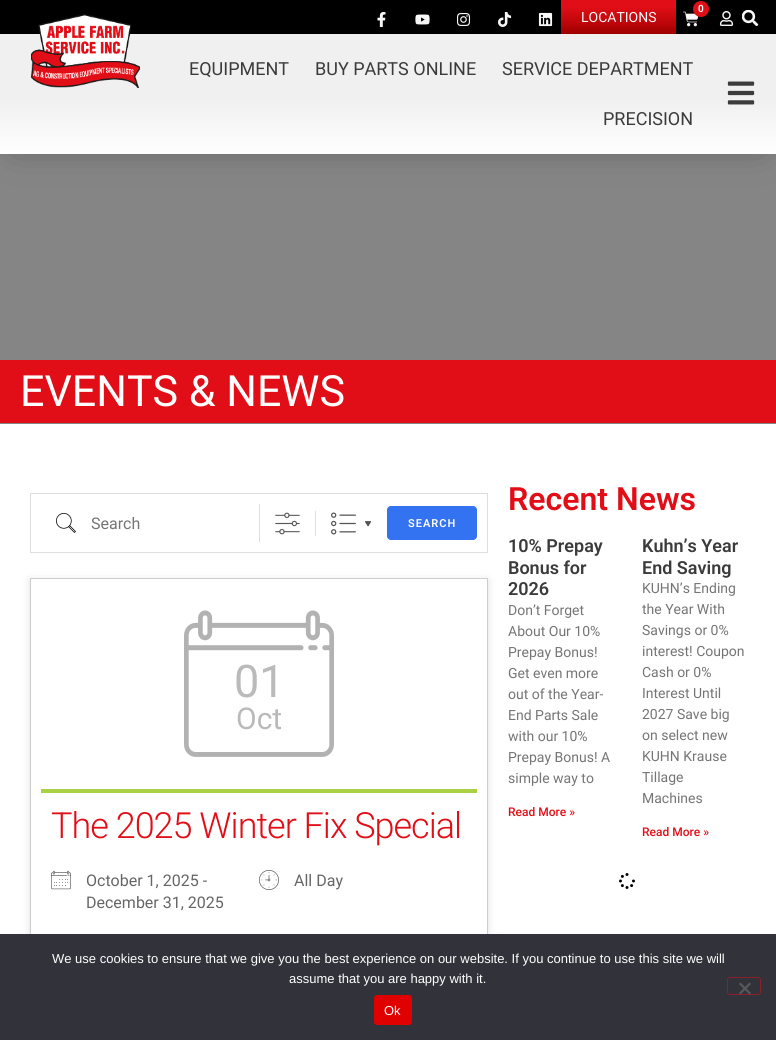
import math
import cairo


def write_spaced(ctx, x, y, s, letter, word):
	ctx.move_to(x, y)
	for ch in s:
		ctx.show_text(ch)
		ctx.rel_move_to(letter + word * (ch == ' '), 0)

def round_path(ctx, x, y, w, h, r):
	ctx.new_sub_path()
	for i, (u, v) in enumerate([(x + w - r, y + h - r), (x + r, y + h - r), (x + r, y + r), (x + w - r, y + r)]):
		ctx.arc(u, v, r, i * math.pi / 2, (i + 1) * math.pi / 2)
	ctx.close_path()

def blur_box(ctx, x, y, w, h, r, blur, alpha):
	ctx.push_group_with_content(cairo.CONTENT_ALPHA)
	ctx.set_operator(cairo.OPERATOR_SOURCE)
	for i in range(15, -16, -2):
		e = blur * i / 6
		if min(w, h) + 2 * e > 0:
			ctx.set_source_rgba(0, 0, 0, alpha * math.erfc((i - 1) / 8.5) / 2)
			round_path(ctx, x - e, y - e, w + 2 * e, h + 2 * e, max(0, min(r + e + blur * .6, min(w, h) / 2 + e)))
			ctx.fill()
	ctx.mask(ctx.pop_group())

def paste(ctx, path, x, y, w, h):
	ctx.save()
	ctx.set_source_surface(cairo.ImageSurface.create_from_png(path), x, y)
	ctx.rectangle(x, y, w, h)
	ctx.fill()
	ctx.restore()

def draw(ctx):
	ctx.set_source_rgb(1, 1, 1)
	ctx.paint()
	ctx.set_source_rgb(0, 0, 0)
	ctx.rectangle(0, 0, 776, 34)
	ctx.fill()
	paste(ctx, 'media/1.png', 683, 11, 16, 16)
	ctx.set_source_rgb(0.886, 0.055, 0.09)
	ctx.arc(701, 9, 8, 0, 2 * math.pi)
	ctx.fill()
	ctx.select_font_face('Roboto SemiBold')
	ctx.set_font_size(10)
	ctx.set_source_rgb(1, 1, 1)
	ctx.move_to(698, 12)
	ctx.show_text('0')
	paste(ctx, 'media/2.png', 377, 12, 9, 15)
	paste(ctx, 'media/3.png', 415, 14, 15, 11)
	paste(ctx, 'media/4.png', 457, 13, 14, 13)
	paste(ctx, 'media/5.png', 498, 12, 14, 15)
	paste(ctx, 'media/6.png', 538, 12, 15, 15)
	gradient = cairo.LinearGradient(619, 0, 619, 34)
	gradient.add_color_stop_rgba(0.2, 0.886, 0.055, 0.09, 1)
	gradient.add_color_stop_rgba(1, 0.69, 0, 0, 1)
	ctx.set_source(gradient)
	ctx.rectangle(561, 0, 115, 34)
	ctx.fill()
	ctx.select_font_face('Roboto')
	ctx.set_font_size(14)
	ctx.set_source_rgb(1, 1, 1)
	ctx.move_to(581, 22)
	ctx.show_text('LOCATIONS')
	paste(ctx, 'media/7.png', 719, 11, 15, 15)
	paste(ctx, 'media/8.png', 742, 10, 17, 16)
	ctx.set_source_rgb(0.522, 0.522, 0.522)
	ctx.rectangle(0, 154, 776, 270)
	ctx.fill()
	ctx.set_source_rgb(0, 0, 0)
	blur_box(ctx, 16, 50, 744, 88, 0, 20, 0.5)
	gradient = cairo.LinearGradient(388, 34, 388, 154)
	gradient.add_color_stop_rgba(0.55, 0.941, 0.941, 0.941, 1)
	gradient.add_color_stop_rgba(1, 1, 1, 1, 1)
	ctx.set_source(gradient)
	ctx.rectangle(0, 34, 776, 120)
	ctx.fill()
	paste(ctx, 'media/9.png', 31, 14, 109, 74)
	ctx.set_font_size(18)
	ctx.set_source_rgb(0.231, 0.231, 0.231)
	for x, y, s in [
		(189, 75, 'EQUIPMENT'),
		(315, 75, 'BUY PARTS ONLINE'),
		(502, 75, 'SERVICE DEPARTMENT'),
		(603, 125, 'PRECISION'),
	]:
		ctx.move_to(x, y)
		ctx.show_text(s)
	paste(ctx, 'media/10.png', 727, 81, 28, 24)
	ctx.set_source_rgb(0.886, 0.055, 0.09)
	ctx.rectangle(0, 360, 776, 63)
	ctx.fill()
	ctx.set_font_size(43)
	ctx.set_source_rgb(1, 1, 1)
	ctx.move_to(20, 406)
	ctx.show_text('EVENTS & NEWS')
	ctx.rectangle(30.5, 493.5, 457, 59)
	ctx.set_source_rgb(0.871, 0.871, 0.871)
	ctx.set_line_width(1)
	ctx.stroke()
	ctx.rectangle(259, 504, 1, 38)
	ctx.fill()
	paste(ctx, 'media/11.png', 56, 513, 20, 20)
	ctx.set_font_size(16)
	ctx.set_source_rgb(0.459, 0.459, 0.459)
	ctx.move_to(91, 529)
	ctx.show_text('Search')
	paste(ctx, 'media/12.png', 275, 512, 25, 23)
	ctx.set_source_rgb(0.871, 0.871, 0.871)
	ctx.rectangle(315, 511, 1, 25)
	ctx.fill()
	paste(ctx, 'media/13.png', 365, 521, 7, 6)
	paste(ctx, 'media/14.png', 331, 512, 25, 23)
	ctx.set_source_rgb(0.2, 0.447, 0.941)
	round_path(ctx, 387.5, 506.5, 89, 33, 3.5)
	ctx.fill_preserve()
	ctx.stroke()
	ctx.select_font_face('Roboto SemiBold')
	ctx.set_font_size(11)
	ctx.set_source_rgb(1, 1, 1)
	write_spaced(ctx, 408, 527, 'SEARCH', 1, 0)
	ctx.save()
	ctx.set_fill_rule(cairo.FILL_RULE_EVEN_ODD)
	ctx.new_path()
	ctx.move_to(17, 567)
	ctx.line_to(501, 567)
	ctx.line_to(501, 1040)
	ctx.line_to(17, 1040)
	ctx.close_path()
	ctx.move_to(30, 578)
	ctx.line_to(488, 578)
	ctx.line_to(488, 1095)
	ctx.line_to(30, 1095)
	ctx.close_path()
	ctx.clip()
	ctx.set_source_rgb(0.388, 0.388, 0.388)
	blur_box(ctx, 30, 580, 458, 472, 0, 4, 0.2)
	ctx.restore()
	ctx.rectangle(30.5, 578.5, 457, 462)
	ctx.set_source_rgb(0.804, 0.804, 0.804)
	ctx.stroke()
	paste(ctx, 'media/15.png', 184, 610, 150, 147)
	ctx.select_font_face('Roboto')
	ctx.set_font_size(45)
	ctx.set_source_rgb(0.729, 0.729, 0.729)
	ctx.move_to(234, 697)
	ctx.show_text('01')
	ctx.set_font_size(30)
	ctx.move_to(236, 729)
	ctx.show_text('Oct')
	ctx.set_source_rgb(0.659, 0.82, 0.267)
	ctx.rectangle(41, 789, 436, 4)
	ctx.fill()
	ctx.select_font_face('Roboto Light')
	ctx.set_font_size(36)
	ctx.set_source_rgb(0.886, 0.055, 0.09)
	write_spaced(ctx, 51, 838, 'The 2025 Winter Fix Special', -1, 0)
	paste(ctx, 'media/16.png', 51, 870, 20, 20)
	ctx.select_font_face('Roboto')
	ctx.set_font_size(16)
	ctx.set_source_rgb(0.4, 0.4, 0.4)
	ctx.move_to(86, 886)
	ctx.show_text('October 1, 2025 -')
	ctx.move_to(86, 908)
	ctx.show_text('December 31, 2025')
	paste(ctx, 'media/17.png', 259, 870, 20, 20)
	ctx.move_to(294, 886)
	ctx.show_text('All Day')
	ctx.select_font_face('Roboto SemiBold')
	ctx.set_font_size(32)
	ctx.set_source_rgb(0.886, 0.055, 0.09)
	ctx.move_to(508, 510)
	ctx.show_text('Recent News')
	ctx.set_font_size(18)
	ctx.set_source_rgb(0.231, 0.231, 0.231)
	for x, y, s in [
		(508, 552, '10% Prepay'),
		(508, 574, 'Bonus for'),
		(508, 595, '2026'),
	]:
		ctx.move_to(x, y)
		ctx.show_text(s)
	ctx.select_font_face('Roboto')
	ctx.set_font_size(14)
	ctx.set_source_rgb(0.459, 0.459, 0.459)
	for x, y, s in [
		(508, 615, 'Don’t Forget'),
		(508, 636, 'About Our 10%'),
		(508, 657, 'Prepay Bonus!'),
		(508, 678, 'Get even more'),
		(508, 699, 'out of the Year-'),
		(508, 720, 'End Parts Sale'),
		(508, 741, 'with our 10%'),
		(508, 762, 'Prepay Bonus! A'),
		(508, 783, 'simple way to'),
	]:
		ctx.move_to(x, y)
		ctx.show_text(s)
	ctx.select_font_face('Roboto Medium')
	ctx.set_font_size(12)
	ctx.set_source_rgb(0.886, 0.055, 0.09)
	ctx.move_to(508, 816)
	ctx.show_text('Read More »')
	ctx.select_font_face('Roboto SemiBold')
	ctx.set_font_size(18)
	ctx.set_source_rgb(0.231, 0.231, 0.231)
	ctx.move_to(642, 552)
	ctx.show_text('Kuhn’s Year')
	ctx.move_to(642, 574)
	ctx.show_text('End Saving')
	ctx.select_font_face('Roboto')
	ctx.set_font_size(14)
	ctx.set_source_rgb(0.459, 0.459, 0.459)
	for x, y, s in [
		(642, 593, 'KUHN’s Ending'),
		(642, 614, 'the Year With'),
		(642, 635, 'Savings or 0%'),
		(642, 656, 'interest! Coupon'),
		(642, 677, 'Cash or 0%'),
		(642, 698, 'Interest Until'),
		(642, 719, '2027 Save big'),
		(642, 740, 'on select new'),
		(642, 761, 'KUHN Krause'),
		(642, 782, 'Tillage'),
		(642, 803, 'Machines'),
	]:
		ctx.move_to(x, y)
		ctx.show_text(s)
	ctx.select_font_face('Roboto Medium')
	ctx.set_font_size(12)
	ctx.set_source_rgb(0.886, 0.055, 0.09)
	ctx.move_to(642, 836)
	ctx.show_text('Read More »')
	paste(ctx, 'media/18.png', 619, 873, 16, 16)
	ctx.set_source_rgb(0.196, 0.196, 0.227)
	ctx.rectangle(0, 934, 776, 106)
	ctx.fill()
	ctx.select_font_face('Liberation Sans')
	ctx.set_font_size(13)
	ctx.set_source_rgb(1, 1, 1)
	ctx.move_to(52, 963)
	ctx.show_text('We use cookies to ensure that we give you the best experience on our website. If you continue to use this site we will')
	ctx.move_to(289, 983)
	ctx.show_text('assume that you are happy with it.')
	round_path(ctx, 727.5, 977.5, 33, 17, 2.5)
	ctx.set_source_rgb(0.541, 0.125, 0.161)
	ctx.stroke()
	ctx.set_source_rgb(0.349, 0.349, 0.365)
	ctx.new_path()
	ctx.move_to(749.5, 982.5)
	ctx.line_to(751, 984)
	ctx.line_to(740.5, 994.5)
	ctx.line_to(739, 993)
	ctx.close_path()
	ctx.fill()
	ctx.new_path()
	ctx.move_to(739, 984)
	ctx.line_to(740.5, 982.5)
	ctx.line_to(751, 993)
	ctx.line_to(749.5, 994.5)
	ctx.close_path()
	ctx.fill()
	ctx.set_source_rgb(0.878, 0, 0)
	round_path(ctx, 374, 995, 38, 30, 3)
	ctx.fill()
	ctx.set_source_rgb(1, 1, 1)
	ctx.move_to(384, 1015)
	ctx.show_text('Ok')


surface = cairo.ImageSurface(cairo.FORMAT_RGB24, 776, 1040)
ctx = cairo.Context(surface)
options = cairo.FontOptions()
options.set_hint_metrics(cairo.HINT_METRICS_OFF)
options.set_hint_style(cairo.HINT_STYLE_NONE)
ctx.set_font_options(options)
ctx.set_miter_limit(4)
draw(ctx)
surface.write_to_png('image.png')
